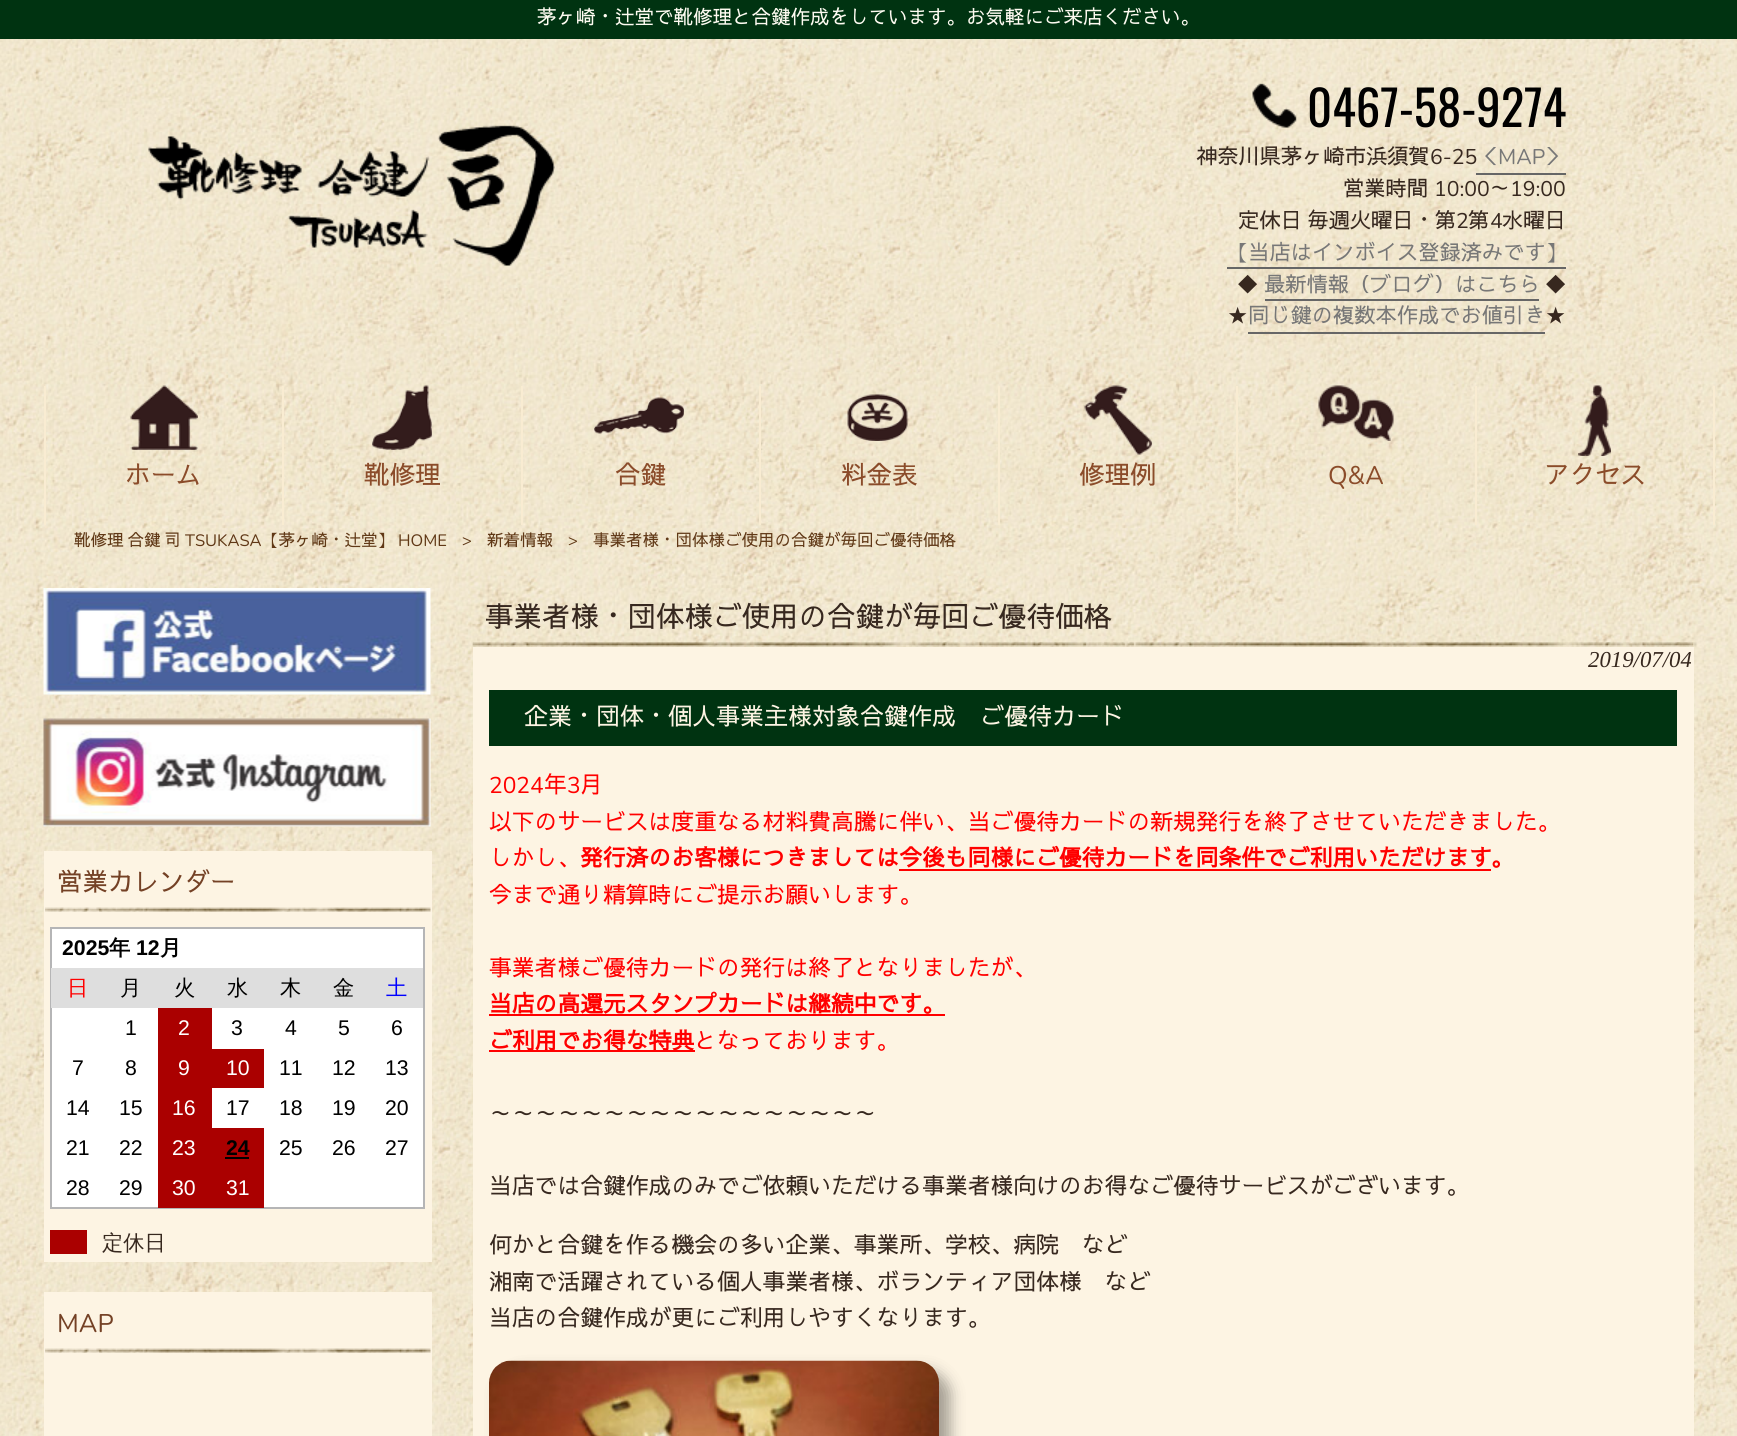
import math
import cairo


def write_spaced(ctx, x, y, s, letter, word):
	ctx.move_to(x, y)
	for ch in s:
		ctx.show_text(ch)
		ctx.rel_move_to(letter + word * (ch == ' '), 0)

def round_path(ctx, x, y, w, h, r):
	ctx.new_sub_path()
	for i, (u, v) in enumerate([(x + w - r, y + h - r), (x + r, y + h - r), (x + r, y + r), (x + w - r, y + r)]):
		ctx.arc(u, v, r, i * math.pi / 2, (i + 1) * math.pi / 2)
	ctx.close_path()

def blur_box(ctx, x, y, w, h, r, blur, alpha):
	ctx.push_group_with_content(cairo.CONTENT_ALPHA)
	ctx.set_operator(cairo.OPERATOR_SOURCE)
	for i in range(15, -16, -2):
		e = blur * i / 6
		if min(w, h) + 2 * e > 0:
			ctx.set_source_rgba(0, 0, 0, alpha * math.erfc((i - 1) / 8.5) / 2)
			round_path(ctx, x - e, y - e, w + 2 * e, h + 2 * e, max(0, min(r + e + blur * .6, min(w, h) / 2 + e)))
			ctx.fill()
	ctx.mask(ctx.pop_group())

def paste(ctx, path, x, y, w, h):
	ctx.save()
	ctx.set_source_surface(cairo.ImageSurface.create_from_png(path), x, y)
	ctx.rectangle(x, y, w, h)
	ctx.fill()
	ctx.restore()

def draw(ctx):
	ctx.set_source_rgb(1, 1, 1)
	ctx.paint()
	paste(ctx, 'media/1.png', 0, 39, 1737, 1397)
	ctx.set_source_rgb(0, 0.2, 0.067)
	ctx.rectangle(0, 0, 1737, 39)
	ctx.fill()
	ctx.select_font_face('Sawarabi Gothic')
	ctx.set_font_size(19.5)
	ctx.set_source_rgb(0.996, 0.984, 0.945)
	ctx.move_to(537, 24)
	ctx.show_text('茅ヶ崎・辻堂で靴修理と合鍵作成をしています。お気軽にご来店ください。')
	paste(ctx, 'media/2.png', 148, 125, 407, 141)
	paste(ctx, 'media/3.png', 1252, 83, 45, 45)
	ctx.select_font_face('Oswald')
	ctx.set_font_size(48.75)
	ctx.set_source_rgb(0, 0, 0)
	ctx.move_to(1307, 127)
	ctx.show_text('0467-58-9274')
	ctx.select_font_face('Sawarabi Gothic')
	ctx.set_font_size(21.25)
	ctx.set_source_rgb(0.216, 0.157, 0.122)
	ctx.move_to(1196, 164)
	ctx.show_text('神奈川県茅ヶ崎市浜須賀')
	ctx.select_font_face('Nunito ExtraLight')
	ctx.move_to(1430, 164)
	ctx.show_text('6-25')
	ctx.select_font_face('Sawarabi Gothic')
	ctx.set_source_rgb(0.467, 0.467, 0.467)
	ctx.move_to(1477, 164)
	ctx.show_text('＜')
	ctx.set_source_rgb(0.4, 0.4, 0.4)
	ctx.rectangle(1476, 173, 90, 2)
	ctx.fill()
	ctx.select_font_face('Nunito ExtraLight')
	ctx.set_source_rgb(0.467, 0.467, 0.467)
	ctx.move_to(1498, 164)
	ctx.show_text('MAP')
	ctx.select_font_face('Sawarabi Gothic')
	ctx.move_to(1545, 164)
	ctx.show_text('＞')
	ctx.set_source_rgb(0.216, 0.157, 0.122)
	ctx.move_to(1343, 196)
	ctx.show_text('営業時間')
	ctx.select_font_face('Nunito ExtraLight')
	ctx.move_to(1434, 196)
	ctx.show_text('10:00')
	ctx.select_font_face('Sawarabi Gothic')
	ctx.move_to(1489, 196)
	ctx.show_text('～')
	ctx.select_font_face('Nunito ExtraLight')
	ctx.move_to(1510, 196)
	ctx.show_text('19:00')
	ctx.select_font_face('Sawarabi Gothic')
	write_spaced(ctx, 1238, 228, '定休日 毎週火曜日・第', 0, -1)
	ctx.select_font_face('Nunito ExtraLight')
	ctx.move_to(1456, 228)
	ctx.show_text('2')
	ctx.select_font_face('Sawarabi Gothic')
	ctx.move_to(1468, 228)
	ctx.show_text('第')
	ctx.select_font_face('Nunito ExtraLight')
	ctx.move_to(1490, 228)
	ctx.show_text('4')
	ctx.select_font_face('Sawarabi Gothic')
	ctx.move_to(1502, 228)
	ctx.show_text('水曜日')
	ctx.set_source_rgb(0.467, 0.467, 0.467)
	ctx.move_to(1227, 260)
	ctx.show_text('【当店はインボイス登録済みです】')
	ctx.set_source_rgb(0.4, 0.4, 0.4)
	ctx.rectangle(1227, 267, 339, 2)
	ctx.fill()
	ctx.set_source_rgb(0.216, 0.157, 0.122)
	ctx.move_to(1237, 292)
	ctx.show_text('◆')
	ctx.set_source_rgb(0.467, 0.467, 0.467)
	ctx.move_to(1264, 292)
	ctx.show_text('最新情報（ブログ）はこちら')
	ctx.set_source_rgb(0.4, 0.4, 0.4)
	ctx.rectangle(1265, 299, 274, 2)
	ctx.fill()
	ctx.set_source_rgb(0.216, 0.157, 0.122)
	ctx.move_to(1545, 292)
	ctx.show_text('◆')
	ctx.move_to(1227, 323)
	ctx.show_text('★')
	ctx.set_source_rgb(0.467, 0.467, 0.467)
	ctx.move_to(1248, 323)
	ctx.show_text('同じ鍵の複数本作成でお値引き')
	ctx.set_source_rgb(0.4, 0.4, 0.4)
	ctx.rectangle(1248, 332, 297, 2)
	ctx.fill()
	ctx.set_source_rgb(0.216, 0.157, 0.122)
	ctx.move_to(1545, 323)
	ctx.show_text('★')
	paste(ctx, 'media/4.png', 130, 385, 68, 65)
	ctx.set_source_rgb(0.976, 0.925, 0.824)
	ctx.rectangle(282, 386, 2, 139)
	ctx.fill()
	ctx.rectangle(44, 386, 2, 139)
	ctx.fill()
	ctx.set_font_size(25.5)
	ctx.set_source_rgb(0.545, 0.298, 0.165)
	ctx.move_to(125, 484)
	ctx.show_text('ホーム')
	paste(ctx, 'media/5.png', 372, 385, 60, 65)
	ctx.set_source_rgb(0.976, 0.925, 0.824)
	ctx.rectangle(521, 386, 2, 139)
	ctx.fill()
	ctx.set_source_rgb(0.545, 0.298, 0.165)
	ctx.move_to(364, 484)
	ctx.show_text('靴修理')
	paste(ctx, 'media/6.png', 594, 397, 90, 37)
	ctx.set_source_rgb(0.976, 0.925, 0.824)
	ctx.rectangle(759, 386, 2, 139)
	ctx.fill()
	ctx.set_source_rgb(0.545, 0.298, 0.165)
	ctx.move_to(615, 484)
	ctx.show_text('合鍵')
	paste(ctx, 'media/7.png', 847, 394, 61, 47)
	ctx.set_source_rgb(0.976, 0.925, 0.824)
	ctx.rectangle(998, 386, 2, 139)
	ctx.fill()
	ctx.set_source_rgb(0.545, 0.298, 0.165)
	ctx.move_to(841, 484)
	ctx.show_text('料金表')
	paste(ctx, 'media/8.png', 1084, 385, 68, 70)
	ctx.set_source_rgb(0.976, 0.925, 0.824)
	ctx.rectangle(1236, 386, 2, 139)
	ctx.fill()
	ctx.set_source_rgb(0.545, 0.298, 0.165)
	ctx.move_to(1079, 484)
	ctx.show_text('修理例')
	paste(ctx, 'media/9.png', 1318, 385, 76, 56)
	ctx.set_source_rgb(0.976, 0.925, 0.824)
	ctx.rectangle(1475, 386, 2, 139)
	ctx.fill()
	ctx.select_font_face('Nunito ExtraLight')
	ctx.set_source_rgb(0.545, 0.298, 0.165)
	ctx.move_to(1328, 484)
	ctx.show_text('Q&A')
	paste(ctx, 'media/10.png', 1578, 385, 33, 71)
	ctx.set_source_rgb(0.976, 0.925, 0.824)
	ctx.rectangle(1713, 386, 2, 139)
	ctx.fill()
	ctx.select_font_face('Sawarabi Gothic')
	ctx.set_source_rgb(0.545, 0.298, 0.165)
	ctx.move_to(1544, 484)
	ctx.show_text('アクセス')
	ctx.set_font_size(16.5)
	ctx.set_source_rgb(0.376, 0.22, 0.086)
	write_spaced(ctx, 74, 546, '靴修理 合鍵 司', 0, -1)
	ctx.select_font_face('Nunito ExtraLight')
	ctx.move_to(185, 546)
	ctx.show_text('TSUKASA')
	ctx.select_font_face('Sawarabi Gothic')
	ctx.move_to(262, 546)
	ctx.show_text('【茅ヶ崎・辻堂】')
	ctx.select_font_face('Nunito ExtraLight')
	ctx.move_to(398, 546)
	ctx.show_text('HOME')
	ctx.move_to(462, 546)
	ctx.show_text('>')
	ctx.select_font_face('Sawarabi Gothic')
	ctx.move_to(487, 546)
	ctx.show_text('新着情報')
	ctx.select_font_face('Nunito ExtraLight')
	ctx.move_to(568, 546)
	ctx.show_text('>')
	ctx.select_font_face('Sawarabi Gothic')
	ctx.move_to(593, 546)
	ctx.show_text('事業者様・団体様ご使用の合鍵が毎回ご優待価格')
	paste(ctx, 'media/11.png', 43, 588, 388, 107)
	paste(ctx, 'media/12.png', 43, 718, 388, 109)
	ctx.set_source_rgb(0.992, 0.957, 0.89)
	ctx.rectangle(44, 851, 388, 411)
	ctx.fill()
	paste(ctx, 'media/13.png', 45, 907, 386, 5)
	ctx.set_font_size(25.5)
	ctx.set_source_rgb(0.455, 0.255, 0.145)
	ctx.move_to(57, 891)
	ctx.show_text('営業カレンダー')
	ctx.set_source_rgb(1, 1, 1)
	ctx.rectangle(51, 928, 373, 280)
	ctx.fill_preserve()
	ctx.set_source_rgb(0.71, 0.71, 0.714)
	ctx.stroke()
	ctx.select_font_face('Liberation Sans', cairo.FONT_SLANT_NORMAL, cairo.FONT_WEIGHT_BOLD)
	ctx.set_font_size(21.25)
	ctx.set_source_rgb(0, 0, 0)
	ctx.move_to(62, 955)
	ctx.show_text('2025')
	ctx.select_font_face('WenQuanYi Zen Hei', cairo.FONT_SLANT_NORMAL, cairo.FONT_WEIGHT_BOLD)
	ctx.move_to(109, 955)
	ctx.show_text('年')
	ctx.select_font_face('Liberation Sans', cairo.FONT_SLANT_NORMAL, cairo.FONT_WEIGHT_BOLD)
	ctx.move_to(136, 955)
	ctx.show_text('12')
	ctx.select_font_face('WenQuanYi Zen Hei', cairo.FONT_SLANT_NORMAL, cairo.FONT_WEIGHT_BOLD)
	ctx.move_to(160, 955)
	ctx.show_text('月')
	ctx.set_source_rgb(0.871, 0.871, 0.871)
	ctx.rectangle(51, 968, 372, 40)
	ctx.fill()
	ctx.select_font_face('WenQuanYi Zen Hei Medium')
	ctx.set_source_rgb(1, 0, 0)
	ctx.move_to(67, 995)
	ctx.show_text('日')
	ctx.set_source_rgb(0, 0, 0)
	for x, y, s in [
		(120, 995, '月'),
		(174, 995, '火'),
		(227, 995, '水'),
		(280, 995, '木'),
		(333, 995, '金'),
	]:
		ctx.move_to(x, y)
		ctx.show_text(s)
	ctx.set_source_rgb(0, 0, 1)
	ctx.move_to(386, 995)
	ctx.show_text('土')
	ctx.select_font_face('Liberation Sans')
	ctx.set_source_rgb(0, 0, 0)
	ctx.move_to(125, 1035)
	ctx.show_text('1')
	ctx.set_source_rgb(0.667, 0, 0)
	ctx.rectangle(158, 1008, 54, 200)
	ctx.fill()
	ctx.set_source_rgb(1, 1, 1)
	ctx.move_to(178, 1035)
	ctx.show_text('2')
	ctx.set_source_rgb(0, 0, 0)
	for x, y, s in [
		(231, 1035, '3'),
		(285, 1035, '4'),
		(338, 1035, '5'),
		(391, 1035, '6'),
		(72, 1075, '7'),
		(125, 1075, '8'),
	]:
		ctx.move_to(x, y)
		ctx.show_text(s)
	ctx.set_source_rgb(1, 1, 1)
	ctx.move_to(178, 1075)
	ctx.show_text('9')
	ctx.set_source_rgb(0.667, 0, 0)
	ctx.rectangle(212, 1049, 52, 39)
	ctx.fill()
	ctx.set_source_rgb(1, 1, 1)
	ctx.move_to(226, 1075)
	ctx.show_text('10')
	ctx.set_source_rgb(0, 0, 0)
	for x, y, s in [
		(279, 1075, '11'),
		(332, 1075, '12'),
		(385, 1075, '13'),
		(66, 1115, '14'),
		(119, 1115, '15'),
	]:
		ctx.move_to(x, y)
		ctx.show_text(s)
	ctx.set_source_rgb(1, 1, 1)
	ctx.move_to(172, 1115)
	ctx.show_text('16')
	ctx.set_source_rgb(0, 0, 0)
	for x, y, s in [
		(226, 1115, '17'),
		(279, 1115, '18'),
		(332, 1115, '19'),
		(385, 1115, '20'),
		(66, 1155, '21'),
		(119, 1155, '22'),
	]:
		ctx.move_to(x, y)
		ctx.show_text(s)
	ctx.set_source_rgb(1, 1, 1)
	ctx.move_to(172, 1155)
	ctx.show_text('23')
	ctx.set_source_rgb(0.667, 0, 0)
	ctx.rectangle(212, 1128, 52, 80)
	ctx.fill()
	ctx.select_font_face('Liberation Sans', cairo.FONT_SLANT_NORMAL, cairo.FONT_WEIGHT_BOLD)
	ctx.set_source_rgb(0, 0, 0)
	ctx.move_to(226, 1155)
	ctx.show_text('24')
	ctx.rectangle(225, 1157, 24, 2)
	ctx.fill()
	ctx.select_font_face('Liberation Sans')
	for x, y, s in [
		(279, 1155, '25'),
		(332, 1155, '26'),
		(385, 1155, '27'),
		(66, 1195, '28'),
		(119, 1195, '29'),
	]:
		ctx.move_to(x, y)
		ctx.show_text(s)
	ctx.set_source_rgb(1, 1, 1)
	ctx.move_to(172, 1195)
	ctx.show_text('30')
	ctx.move_to(226, 1195)
	ctx.show_text('31')
	ctx.set_source_rgb(0.667, 0, 0)
	ctx.rectangle(50, 1230, 37, 24)
	ctx.fill()
	ctx.select_font_face('WenQuanYi Zen Hei Medium')
	ctx.set_source_rgb(0.216, 0.157, 0.122)
	ctx.move_to(102, 1250)
	ctx.show_text('定休日')
	ctx.set_source_rgb(0.992, 0.957, 0.89)
	ctx.rectangle(44, 1292, 388, 144)
	ctx.fill()
	paste(ctx, 'media/13.png', 45, 1348, 386, 5)
	ctx.select_font_face('Nunito ExtraLight')
	ctx.set_font_size(25.5)
	ctx.set_source_rgb(0.455, 0.255, 0.145)
	ctx.move_to(57, 1332)
	ctx.show_text('MAP')
	paste(ctx, 'media/14.png', 472, 642, 1222, 5)
	ctx.select_font_face('Sawarabi Gothic')
	ctx.set_font_size(28.5)
	ctx.set_source_rgb(0.216, 0.157, 0.122)
	ctx.move_to(485, 627)
	ctx.show_text('事業者様・団体様ご使用の合鍵が毎回ご優待価格')
	ctx.set_source_rgb(0.992, 0.957, 0.89)
	ctx.rectangle(473, 647, 1221, 789)
	ctx.fill()
	ctx.select_font_face('Liberation Serif', cairo.FONT_SLANT_ITALIC)
	ctx.set_font_size(22.8)
	ctx.set_source_rgb(0.216, 0.157, 0.122)
	ctx.move_to(1588, 667)
	ctx.show_text('2019/07/04')
	ctx.set_source_rgb(0, 0.2, 0.067)
	ctx.rectangle(489, 690, 1188, 56)
	ctx.fill()
	ctx.select_font_face('Sawarabi Gothic')
	ctx.set_font_size(24)
	ctx.set_source_rgb(0.992, 0.957, 0.89)
	ctx.move_to(524, 725)
	ctx.show_text('企業・団体・個人事業主様対象合鍵作成　ご優待カード')
	ctx.select_font_face('Nunito ExtraLight')
	ctx.set_font_size(22.8)
	ctx.set_source_rgb(1, 0, 0)
	ctx.move_to(489, 793)
	ctx.show_text('2024')
	ctx.select_font_face('Sawarabi Gothic')
	ctx.move_to(544, 793)
	ctx.show_text('年')
	ctx.select_font_face('Nunito ExtraLight')
	ctx.move_to(567, 793)
	ctx.show_text('3')
	ctx.select_font_face('Sawarabi Gothic')
	for x, y, s in [
		(580, 793, '月'),
		(489, 830, '以下のサービスは度重なる材料費高騰に伴い、当ご優待カードの新規発行を終了させていただきました。'),
		(489, 866, 'しかし、'),
	]:
		ctx.move_to(x, y)
		ctx.show_text(s)
	ctx.select_font_face('Sawarabi Gothic', cairo.FONT_SLANT_NORMAL, cairo.FONT_WEIGHT_BOLD)
	ctx.move_to(580, 866)
	ctx.show_text('発行済のお客様につきましては今後も同様にご優待カードを同条件でご利用いただけます')
	ctx.move_to(1491, 866)
	ctx.show_text('。')
	ctx.rectangle(899, 869, 592, 2)
	ctx.fill()
	ctx.select_font_face('Sawarabi Gothic')
	ctx.move_to(489, 903)
	ctx.show_text('今まで通り精算時にご提示お願いします。')
	ctx.move_to(489, 976)
	ctx.show_text('事業者様ご優待カードの発行は終了となりましたが、')
	ctx.select_font_face('Sawarabi Gothic', cairo.FONT_SLANT_NORMAL, cairo.FONT_WEIGHT_BOLD)
	ctx.move_to(489, 1012)
	ctx.show_text('当店の高還元スタンプカードは継続中です。')
	ctx.rectangle(489, 1014, 456, 2)
	ctx.fill()
	ctx.rectangle(489, 1050, 206, 2)
	ctx.fill()
	ctx.move_to(489, 1049)
	ctx.show_text('ご利用でお得な特典')
	ctx.select_font_face('Sawarabi Gothic')
	ctx.move_to(694, 1049)
	ctx.show_text('となっております。')
	ctx.set_source_rgb(0.216, 0.157, 0.122)
	for x, y, s in [
		(489, 1122, '～～～～～～～～～～～～～～～～～'),
		(489, 1194, '当店では合鍵作成のみでご依頼いただける事業者様向けのお得なご優待サービスがございます。'),
		(489, 1253, '何かと合鍵を作る機会の多い企業、事業所、学校、病院　など'),
		(489, 1290, '湘南で活躍されている個人事業者様、ボランティア団体様　など'),
		(489, 1326, '当店の合鍵作成が更にご利用しやすくなります。'),
	]:
		ctx.move_to(x, y)
		ctx.show_text(s)
	ctx.set_source_rgb(0, 0, 0)
	blur_box(ctx, 500, 1371, 450, 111, 23, 7.5, 0.36)
	paste(ctx, 'media/15.png', 489, 1360, 450, 76)


surface = cairo.ImageSurface(cairo.FORMAT_RGB24, 1737, 1436)
ctx = cairo.Context(surface)
options = cairo.FontOptions()
options.set_hint_metrics(cairo.HINT_METRICS_OFF)
options.set_hint_style(cairo.HINT_STYLE_NONE)
ctx.set_font_options(options)
ctx.set_miter_limit(4)
draw(ctx)
surface.write_to_png('image.png')
